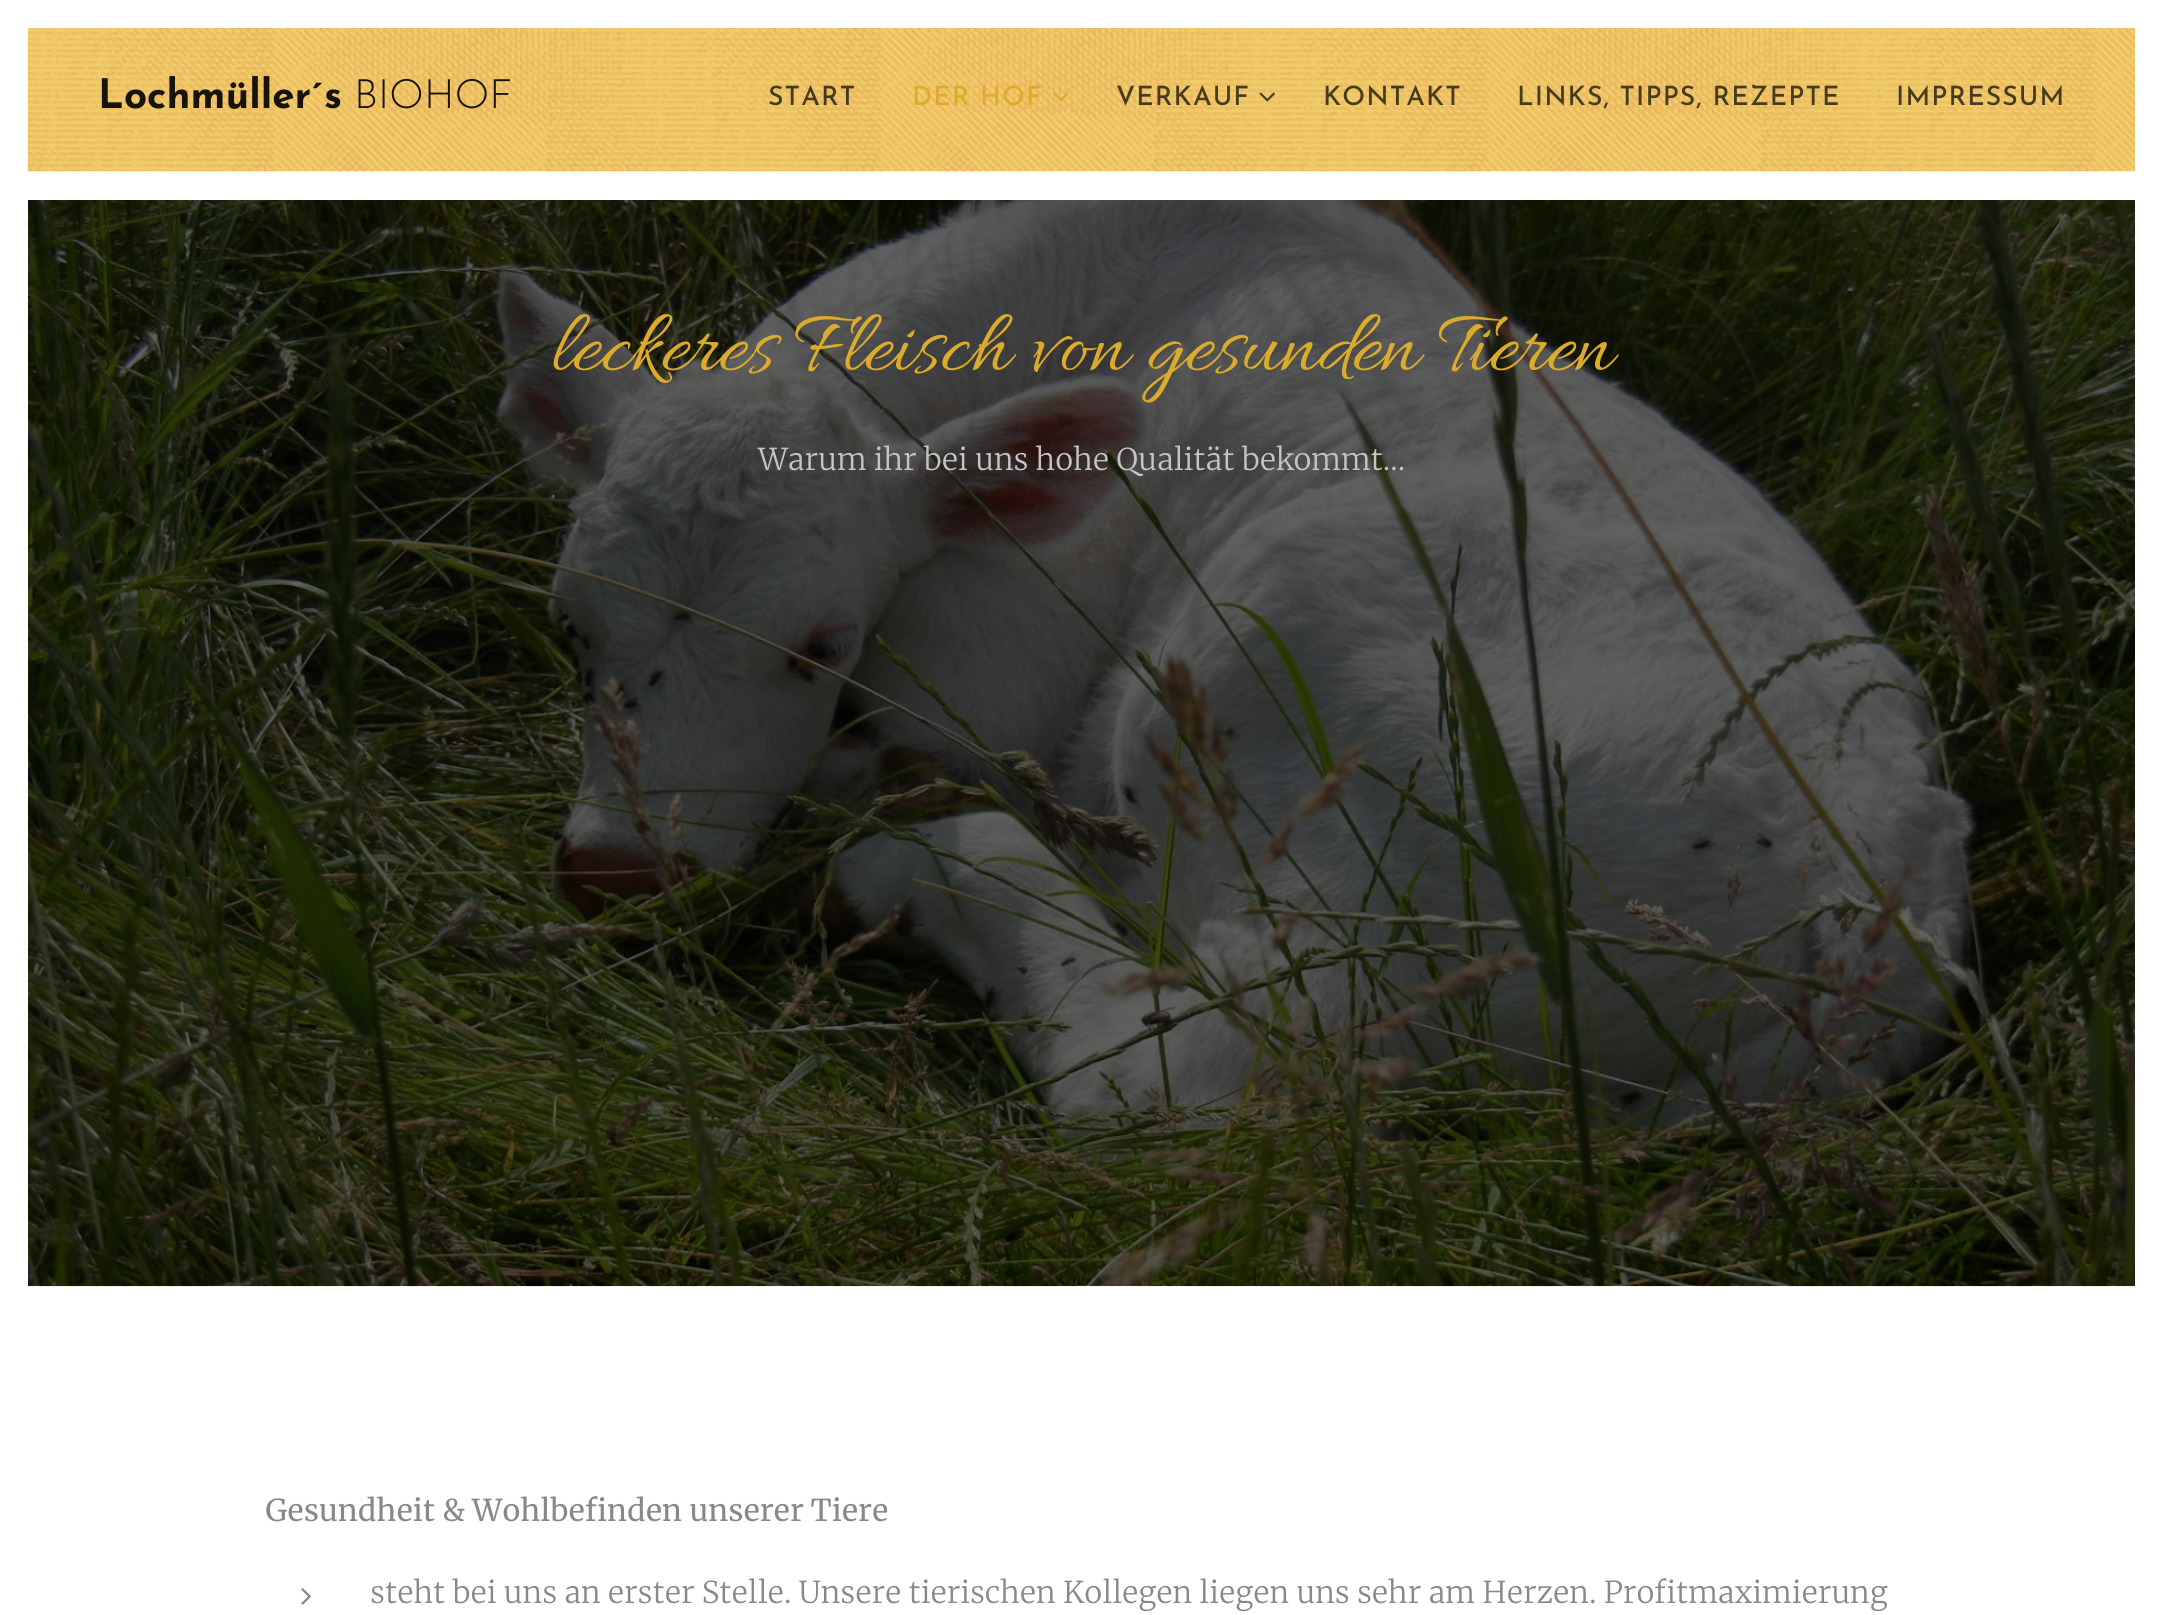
import math
import cairo


def write_spaced(ctx, x, y, s, letter, word):
	ctx.move_to(x, y)
	for ch in s:
		ctx.show_text(ch)
		ctx.rel_move_to(letter + word * (ch == ' '), 0)

def paste(ctx, path, x, y, w, h):
	ctx.save()
	ctx.set_source_surface(cairo.ImageSurface.create_from_png(path), x, y)
	ctx.rectangle(x, y, w, h)
	ctx.fill()
	ctx.restore()

def draw(ctx):
	ctx.set_source_rgb(1, 1, 1)
	ctx.paint()
	paste(ctx, 'media/1.png', 28, 28, 2107, 144)
	ctx.select_font_face('Josefin Sans', cairo.FONT_SLANT_NORMAL, cairo.FONT_WEIGHT_BOLD)
	ctx.set_font_size(40.5)
	ctx.set_source_rgb(0.094, 0.078, 0.039)
	ctx.move_to(98, 108)
	ctx.show_text('Lochmüller´s')
	ctx.select_font_face('Josefin Sans Light')
	ctx.move_to(354, 108)
	ctx.show_text('BIOHOF')
	ctx.select_font_face('Josefin Sans Medium')
	ctx.set_font_size(26.6)
	ctx.set_source_rgb(0.278, 0.231, 0.118)
	write_spaced(ctx, 768, 105, 'START', 1.1, 0)
	ctx.set_source_rgb(0.863, 0.671, 0.169)
	write_spaced(ctx, 912, 105, 'DER HOF', 1.1, 0)
	paste(ctx, 'media/2.png', 1053, 92, 16, 10)
	ctx.set_source_rgb(0.278, 0.231, 0.118)
	write_spaced(ctx, 1116, 105, 'VERKAUF', 1.1, 0)
	paste(ctx, 'media/3.png', 1259, 92, 16, 10)
	for x, y, s in [
		(1323, 105, 'KONTAKT'),
		(1517, 105, 'LINKS, TIPPS, REZEPTE'),
		(1896, 105, 'IMPRESSUM'),
	]:
		write_spaced(ctx, x, y, s, 1.1, 0)
	paste(ctx, 'media/4.png', 28, 200, 2107, 1087)
	ctx.select_font_face('Allura')
	ctx.set_font_size(91)
	ctx.set_source_rgb(0.863, 0.671, 0.169)
	ctx.move_to(551, 369)
	ctx.show_text('leckeres Fleisch von gesunden Tieren')
	ctx.select_font_face('Merriweather Light')
	ctx.set_font_size(30.1)
	ctx.set_source_rgb(0.776, 0.773, 0.769)
	ctx.move_to(758, 470)
	ctx.show_text('Warum ihr bei uns hohe Qualität bekommt...')
	ctx.select_font_face('Merriweather')
	ctx.set_source_rgb(0.533, 0.533, 0.533)
	ctx.move_to(265, 1521)
	ctx.show_text('Gesundheit & Wohlbefinden unserer Tiere')
	paste(ctx, 'media/5.png', 301, 1588, 10, 17)
	ctx.select_font_face('Merriweather Light')
	ctx.move_to(370, 1603)
	ctx.show_text('steht bei uns an erster Stelle. Unsere tierischen Kollegen liegen uns sehr am Herzen. Profitmaximierung')


surface = cairo.ImageSurface(cairo.FORMAT_RGB24, 2162, 1615)
ctx = cairo.Context(surface)
options = cairo.FontOptions()
options.set_hint_metrics(cairo.HINT_METRICS_OFF)
options.set_hint_style(cairo.HINT_STYLE_NONE)
ctx.set_font_options(options)
ctx.set_miter_limit(4)
draw(ctx)
surface.write_to_png('image.png')
